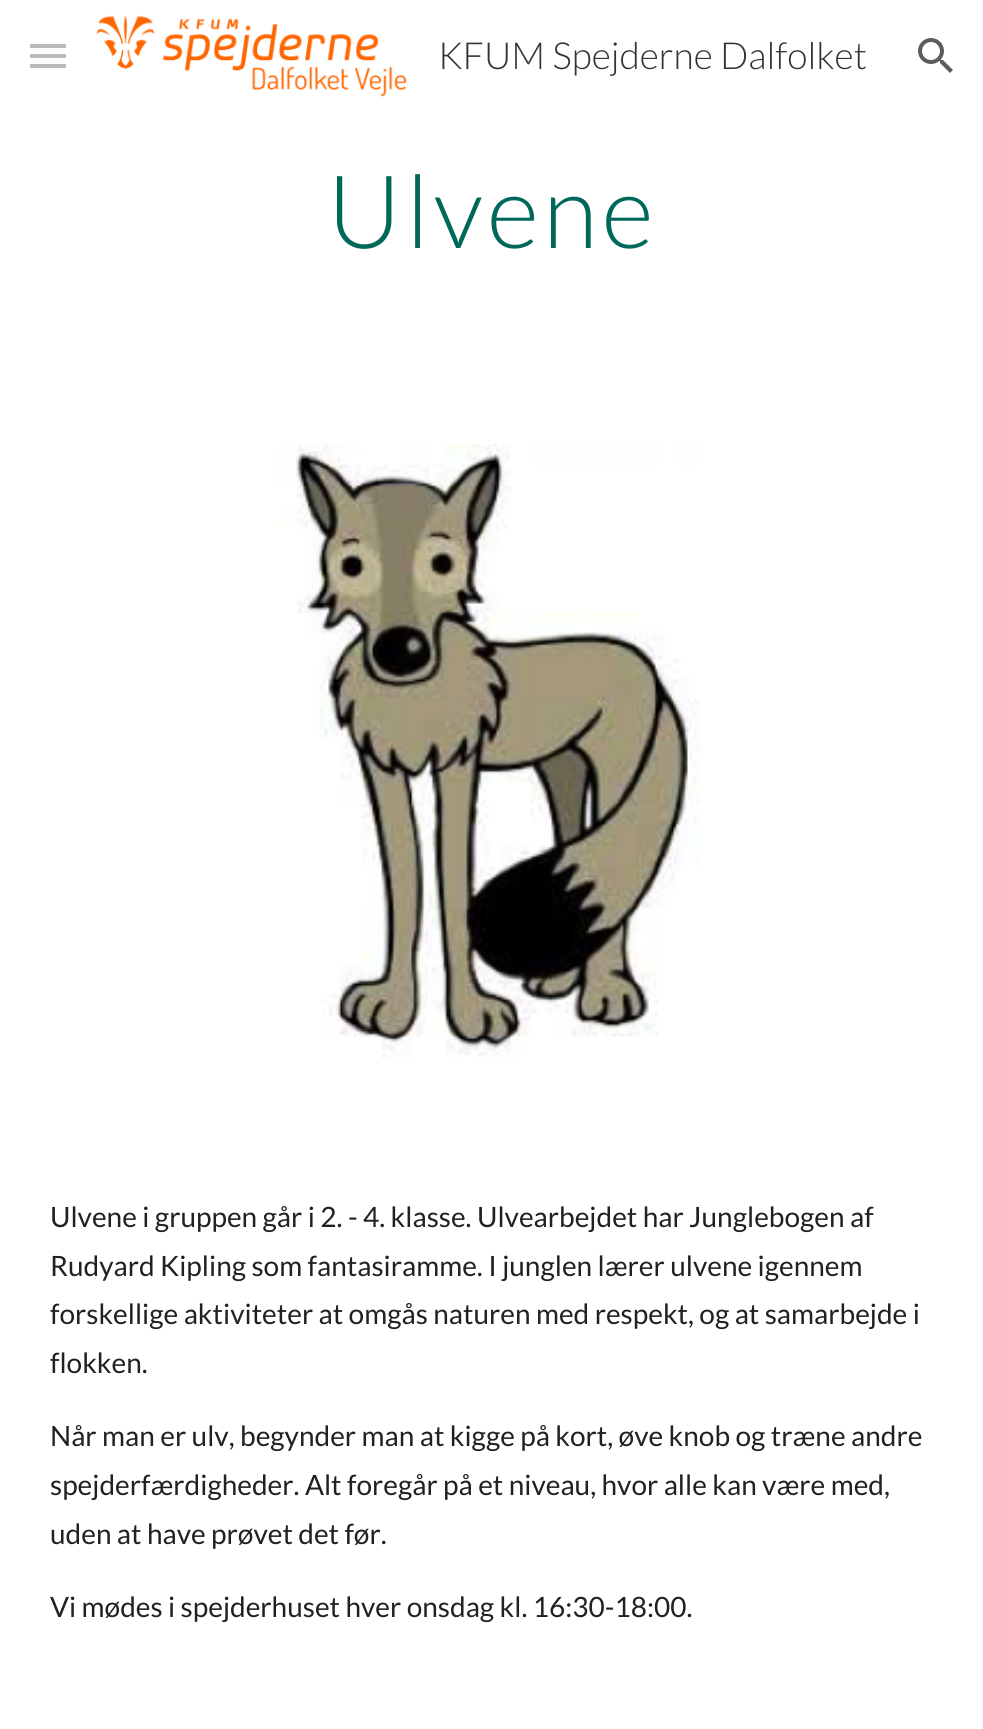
import math
import cairo


def write_spaced(ctx, x, y, s, letter, word):
	ctx.move_to(x, y)
	for ch in s:
		ctx.show_text(ch)
		ctx.rel_move_to(letter + word * (ch == ' '), 0)

def paste(ctx, path, x, y, w, h):
	ctx.save()
	ctx.set_source_surface(cairo.ImageSurface.create_from_png(path), x, y)
	ctx.rectangle(x, y, w, h)
	ctx.fill()
	ctx.restore()

def draw(ctx):
	ctx.set_source_rgb(1, 1, 1)
	ctx.paint()
	ctx.set_source_rgb(0.698, 0.698, 0.698)
	ctx.rectangle(30, 44, 36, 4)
	ctx.rectangle(30, 54, 36, 4)
	ctx.rectangle(30, 64, 36, 4)
	ctx.fill()
	ctx.set_source_rgba(1, 1, 1, 0.12)
	ctx.rectangle(30, 44, 36, 24)
	ctx.fill()
	paste(ctx, 'media/1.png', 96, 15, 311, 82)
	ctx.select_font_face('Lato Light')
	ctx.set_font_size(37.25)
	ctx.set_source_rgb(0.2, 0.2, 0.2)
	ctx.move_to(438, 69)
	ctx.show_text('KFUM Spejderne Dalfolket')
	paste(ctx, 'media/2.png', 918, 38, 35, 35)
	ctx.set_font_size(101.5)
	ctx.set_source_rgb(0, 0.408, 0.357)
	write_spaced(ctx, 327, 248, 'Ulvene', 4, 0)
	paste(ctx, 'media/3.png', 278, 443, 423, 615)
	ctx.select_font_face('Lato')
	ctx.set_font_size(28)
	ctx.set_source_rgb(0.129, 0.129, 0.129)
	for x, y, s in [
		(50, 1227, 'Ulvene i gruppen går i 2. - 4. klasse. Ulvearbejdet har Junglebogen af'),
		(50, 1276, 'Rudyard Kipling som fantasiramme. I junglen lærer ulvene igennem'),
		(50, 1324, 'forskellige aktiviteter at omgås naturen med respekt, og at samarbejde i'),
		(50, 1373, 'flokken.'),
		(50, 1446, 'Når man er ulv, begynder man at kigge på kort, øve knob og træne andre'),
		(50, 1495, 'spejderfærdigheder. Alt foregår på et niveau, hvor alle kan være med,'),
		(50, 1544, 'uden at have prøvet det før.'),
		(50, 1617, 'Vi mødes i spejderhuset hver onsdag kl. 16:30-18:00.'),
	]:
		ctx.move_to(x, y)
		ctx.show_text(s)


surface = cairo.ImageSurface(cairo.FORMAT_RGB24, 983, 1729)
ctx = cairo.Context(surface)
options = cairo.FontOptions()
options.set_hint_metrics(cairo.HINT_METRICS_OFF)
options.set_hint_style(cairo.HINT_STYLE_NONE)
ctx.set_font_options(options)
ctx.set_miter_limit(4)
draw(ctx)
surface.write_to_png('image.png')
